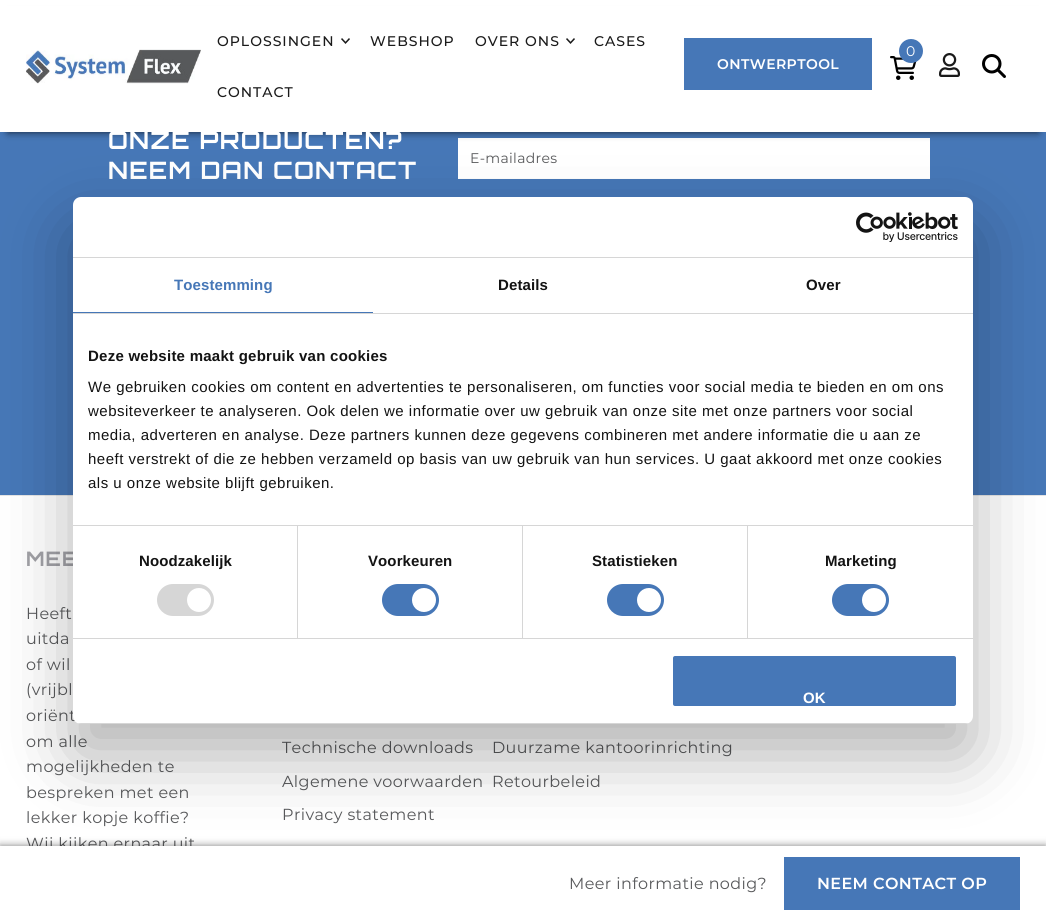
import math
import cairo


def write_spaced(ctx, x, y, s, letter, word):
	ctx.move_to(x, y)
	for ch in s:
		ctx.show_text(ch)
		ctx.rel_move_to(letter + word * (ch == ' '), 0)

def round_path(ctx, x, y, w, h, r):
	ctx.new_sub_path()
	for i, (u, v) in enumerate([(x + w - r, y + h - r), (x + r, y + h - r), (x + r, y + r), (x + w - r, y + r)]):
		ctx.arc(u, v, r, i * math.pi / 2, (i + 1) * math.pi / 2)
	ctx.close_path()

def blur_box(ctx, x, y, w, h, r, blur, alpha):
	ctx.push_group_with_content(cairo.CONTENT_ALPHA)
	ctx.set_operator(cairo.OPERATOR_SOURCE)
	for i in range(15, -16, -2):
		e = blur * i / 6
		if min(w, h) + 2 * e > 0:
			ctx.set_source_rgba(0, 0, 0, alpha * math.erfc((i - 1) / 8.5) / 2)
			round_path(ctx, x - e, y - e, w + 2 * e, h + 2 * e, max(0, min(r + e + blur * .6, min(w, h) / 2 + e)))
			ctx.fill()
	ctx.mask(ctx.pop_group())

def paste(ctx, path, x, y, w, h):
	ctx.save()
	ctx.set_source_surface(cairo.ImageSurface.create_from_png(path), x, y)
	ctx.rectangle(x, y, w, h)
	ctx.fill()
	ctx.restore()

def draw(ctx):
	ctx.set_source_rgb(1, 1, 1)
	ctx.paint()
	ctx.set_source_rgb(0.275, 0.467, 0.718)
	ctx.rectangle(0, 132, 1046, 363)
	ctx.fill()
	ctx.set_source_rgb(1, 1, 1)
	ctx.rectangle(458, 138, 472, 41)
	ctx.fill()
	ctx.set_source_rgb(0, 0, 0)
	blur_box(ctx, 8, 15, 1030, 117, 0, 4, 0.75)
	ctx.set_source_rgb(1, 1, 1)
	ctx.rectangle(0, 6, 1046, 126)
	ctx.fill()
	paste(ctx, 'media/1.png', 26, 49, 175, 35)
	ctx.select_font_face('Montserrat Medium')
	ctx.set_font_size(14)
	ctx.set_source_rgb(0.102, 0.102, 0.102)
	write_spaced(ctx, 217, 46, 'OPLOSSINGEN', 1, 0)
	paste(ctx, 'media/2.png', 341, 38, 9, 6)
	write_spaced(ctx, 370, 46, 'WEBSHOP', 1, 0)
	write_spaced(ctx, 475, 46, 'OVER ONS', 1, 0)
	paste(ctx, 'media/2.png', 566, 38, 9, 6)
	write_spaced(ctx, 594, 46, 'CASES', 1, 0)
	write_spaced(ctx, 217, 97, 'CONTACT', 1, 0)
	paste(ctx, 'media/3.png', 890, 56, 27, 24)
	ctx.set_source_rgb(0.275, 0.467, 0.718)
	ctx.arc(911, 51, 12, 0, 2 * math.pi)
	ctx.fill()
	ctx.select_font_face('Montserrat')
	ctx.set_source_rgb(1, 1, 1)
	write_spaced(ctx, 906, 56, '0', 0.4, 0)
	ctx.set_source_rgb(0.275, 0.467, 0.718)
	ctx.rectangle(684, 38, 188, 52)
	ctx.fill()
	ctx.select_font_face('Montserrat SemiBold')
	ctx.set_source_rgb(1, 1, 1)
	write_spaced(ctx, 717, 69, 'ONTWERPTOOL', 0.4, 0)
	paste(ctx, 'media/4.png', 939, 53, 21, 24)
	paste(ctx, 'media/5.png', 982, 54, 24, 24)
	ctx.select_font_face('Orbitron', cairo.FONT_SLANT_NORMAL, cairo.FONT_WEIGHT_BOLD)
	ctx.set_font_size(24)
	write_spaced(ctx, 108, 149, 'ONZE PRODUCTEN?', 1.25, 0)
	write_spaced(ctx, 108, 179, 'NEEM DAN CONTACT', 1.25, 0)
	ctx.select_font_face('Montserrat')
	ctx.set_font_size(14)
	ctx.set_source_rgb(0.345, 0.349, 0.357)
	write_spaced(ctx, 470, 163, 'E-mailadres', 0.3, 0)
	ctx.set_source_rgb(0.898, 0.898, 0.898)
	ctx.rectangle(0, 495, 1046, 1)
	ctx.fill()
	ctx.select_font_face('Orbitron', cairo.FONT_SLANT_NORMAL, cairo.FONT_WEIGHT_BOLD)
	ctx.set_font_size(20)
	ctx.set_source_rgb(0.631, 0.631, 0.651)
	write_spaced(ctx, 26, 566, 'MEE', 1, 0)
	ctx.select_font_face('Montserrat')
	ctx.set_font_size(16)
	ctx.set_source_rgb(0.345, 0.349, 0.357)
	for x, y, s in [
		(26, 619, 'Heeft'),
		(26, 644, 'uitda'),
		(26, 670, 'of wil'),
		(26, 695, '(vrijbl'),
		(26, 721, 'oriënt'),
		(26, 747, 'om alle'),
		(26, 772, 'mogelijkheden te'),
		(26, 798, 'bespreken met een'),
		(26, 823, 'lekker kopje koffie?'),
		(26, 849, 'Wij kijken ernaar uit'),
		(282, 753, 'Technische downloads'),
		(492, 753, 'Duurzame kantoorinrichting'),
		(282, 787, 'Algemene voorwaarden'),
		(492, 787, 'Retourbeleid'),
		(282, 820, 'Privacy statement'),
	]:
		write_spaced(ctx, x, y, s, 0.4, 0)
	ctx.set_source_rgb(0, 0, 0)
	blur_box(ctx, 0, 846, 1046, 75, 0, 4, 0.5)
	ctx.set_source_rgb(1, 1, 1)
	ctx.rectangle(0, 846, 1046, 75)
	ctx.fill()
	ctx.set_source_rgb(0.345, 0.349, 0.357)
	write_spaced(ctx, 569, 889, 'Meer informatie nodig?', 0.4, 0)
	ctx.set_source_rgb(0.275, 0.467, 0.718)
	ctx.rectangle(784, 857, 236, 53)
	ctx.fill()
	ctx.select_font_face('Montserrat SemiBold')
	ctx.set_source_rgb(1, 1, 1)
	write_spaced(ctx, 817, 889, 'NEEM CONTACT OP', 0.4, 0)
	ctx.set_source_rgb(0, 0, 0)
	blur_box(ctx, 73, 229, 900, 527, 8, 34, 0.3)
	ctx.set_source_rgb(1, 1, 1)
	round_path(ctx, 73, 197, 900, 527, 8)
	ctx.fill()
	ctx.set_source_rgb(0.839, 0.839, 0.839)
	ctx.rectangle(73, 257, 900, 1)
	ctx.fill()
	paste(ctx, 'media/6.png', 856, 212, 102, 30)
	ctx.rectangle(73, 313, 900, 1)
	ctx.fill()
	ctx.set_source_rgb(0.275, 0.467, 0.718)
	ctx.rectangle(73, 312, 300, 1)
	ctx.fill()
	ctx.select_font_face('Liberation Sans', cairo.FONT_SLANT_NORMAL, cairo.FONT_WEIGHT_BOLD)
	ctx.set_font_size(15)
	write_spaced(ctx, 174, 290, 'Toestemming', 0.1, 0)
	ctx.set_source_rgb(0.078, 0.078, 0.078)
	write_spaced(ctx, 498, 290, 'Details', 0.1, 0)
	write_spaced(ctx, 806, 290, 'Over', 0.1, 0)
	ctx.set_source_rgb(0.839, 0.839, 0.839)
	ctx.rectangle(73, 525, 900, 1)
	ctx.fill()
	ctx.set_source_rgb(0.078, 0.078, 0.078)
	write_spaced(ctx, 88, 361, 'Deze website maakt gebruik van cookies', 0.25, 0)
	ctx.select_font_face('Liberation Sans')
	for x, y, s in [
		(88, 392, 'We gebruiken cookies om content en advertenties te personaliseren, om functies voor social media te bieden en om ons'),
		(88, 416, 'websiteverkeer te analyseren. Ook delen we informatie over uw gebruik van onze site met onze partners voor social'),
		(88, 440, 'media, adverteren en analyse. Deze partners kunnen deze gegevens combineren met andere informatie die u aan ze'),
		(88, 464, 'heeft verstrekt of die ze hebben verzameld op basis van uw gebruik van hun services. U gaat akkoord met onze cookies'),
		(88, 488, 'als u onze website blijft gebruiken.'),
	]:
		write_spaced(ctx, x, y, s, 0.5, 0)
	ctx.set_source_rgb(0.839, 0.839, 0.839)
	ctx.rectangle(73, 638, 900, 1)
	ctx.fill()
	ctx.rectangle(297, 526, 1, 112)
	ctx.fill()
	ctx.select_font_face('Liberation Sans', cairo.FONT_SLANT_NORMAL, cairo.FONT_WEIGHT_BOLD)
	ctx.set_source_rgb(0.078, 0.078, 0.078)
	write_spaced(ctx, 139, 566, 'Noodzakelijk', 0.1, 0)
	ctx.set_source_rgb(0.839, 0.839, 0.839)
	round_path(ctx, 157, 584, 57, 32, 16)
	ctx.fill()
	ctx.set_source_rgb(1, 1, 1)
	ctx.arc(199, 600, 12, 0, 2 * math.pi)
	ctx.fill()
	ctx.set_source_rgb(0.839, 0.839, 0.839)
	ctx.rectangle(522, 526, 1, 112)
	ctx.fill()
	ctx.set_source_rgb(0.078, 0.078, 0.078)
	write_spaced(ctx, 368, 566, 'Voorkeuren', 0.1, 0)
	ctx.set_source_rgb(0.275, 0.467, 0.718)
	round_path(ctx, 382, 584, 57, 32, 16)
	ctx.fill()
	ctx.set_source_rgb(1, 1, 1)
	ctx.arc(424, 600, 12, 0, 2 * math.pi)
	ctx.fill()
	ctx.set_source_rgb(0.839, 0.839, 0.839)
	ctx.rectangle(747, 526, 1, 112)
	ctx.fill()
	ctx.set_source_rgb(0.078, 0.078, 0.078)
	write_spaced(ctx, 592, 566, 'Statistieken', 0.1, 0)
	ctx.set_source_rgb(0.275, 0.467, 0.718)
	round_path(ctx, 607, 584, 57, 32, 16)
	ctx.fill()
	ctx.set_source_rgb(1, 1, 1)
	ctx.arc(649, 600, 12, 0, 2 * math.pi)
	ctx.fill()
	ctx.set_source_rgb(0.078, 0.078, 0.078)
	write_spaced(ctx, 825, 566, 'Marketing', 0.1, 0)
	ctx.set_source_rgb(0.275, 0.467, 0.718)
	round_path(ctx, 832, 584, 57, 32, 16)
	ctx.fill()
	ctx.set_source_rgb(1, 1, 1)
	ctx.arc(874, 600, 12, 0, 2 * math.pi)
	ctx.fill()
	ctx.save()
	round_path(ctx, 73, 197, 900, 527, 8)
	ctx.clip()
	ctx.set_source_rgb(0.839, 0.839, 0.839)
	ctx.rectangle(73, 723, 900, 1)
	ctx.fill()
	ctx.restore()
	ctx.set_source_rgb(0.275, 0.467, 0.718)
	round_path(ctx, 672, 655, 285, 52, 3)
	ctx.fill_preserve()
	ctx.set_source_rgb(1, 1, 1)
	ctx.stroke()
	ctx.move_to(803, 703)
	ctx.show_text('OK')


surface = cairo.ImageSurface(cairo.FORMAT_RGB24, 1046, 921)
ctx = cairo.Context(surface)
options = cairo.FontOptions()
options.set_hint_metrics(cairo.HINT_METRICS_OFF)
options.set_hint_style(cairo.HINT_STYLE_NONE)
ctx.set_font_options(options)
ctx.set_miter_limit(4)
draw(ctx)
surface.write_to_png('image.png')
